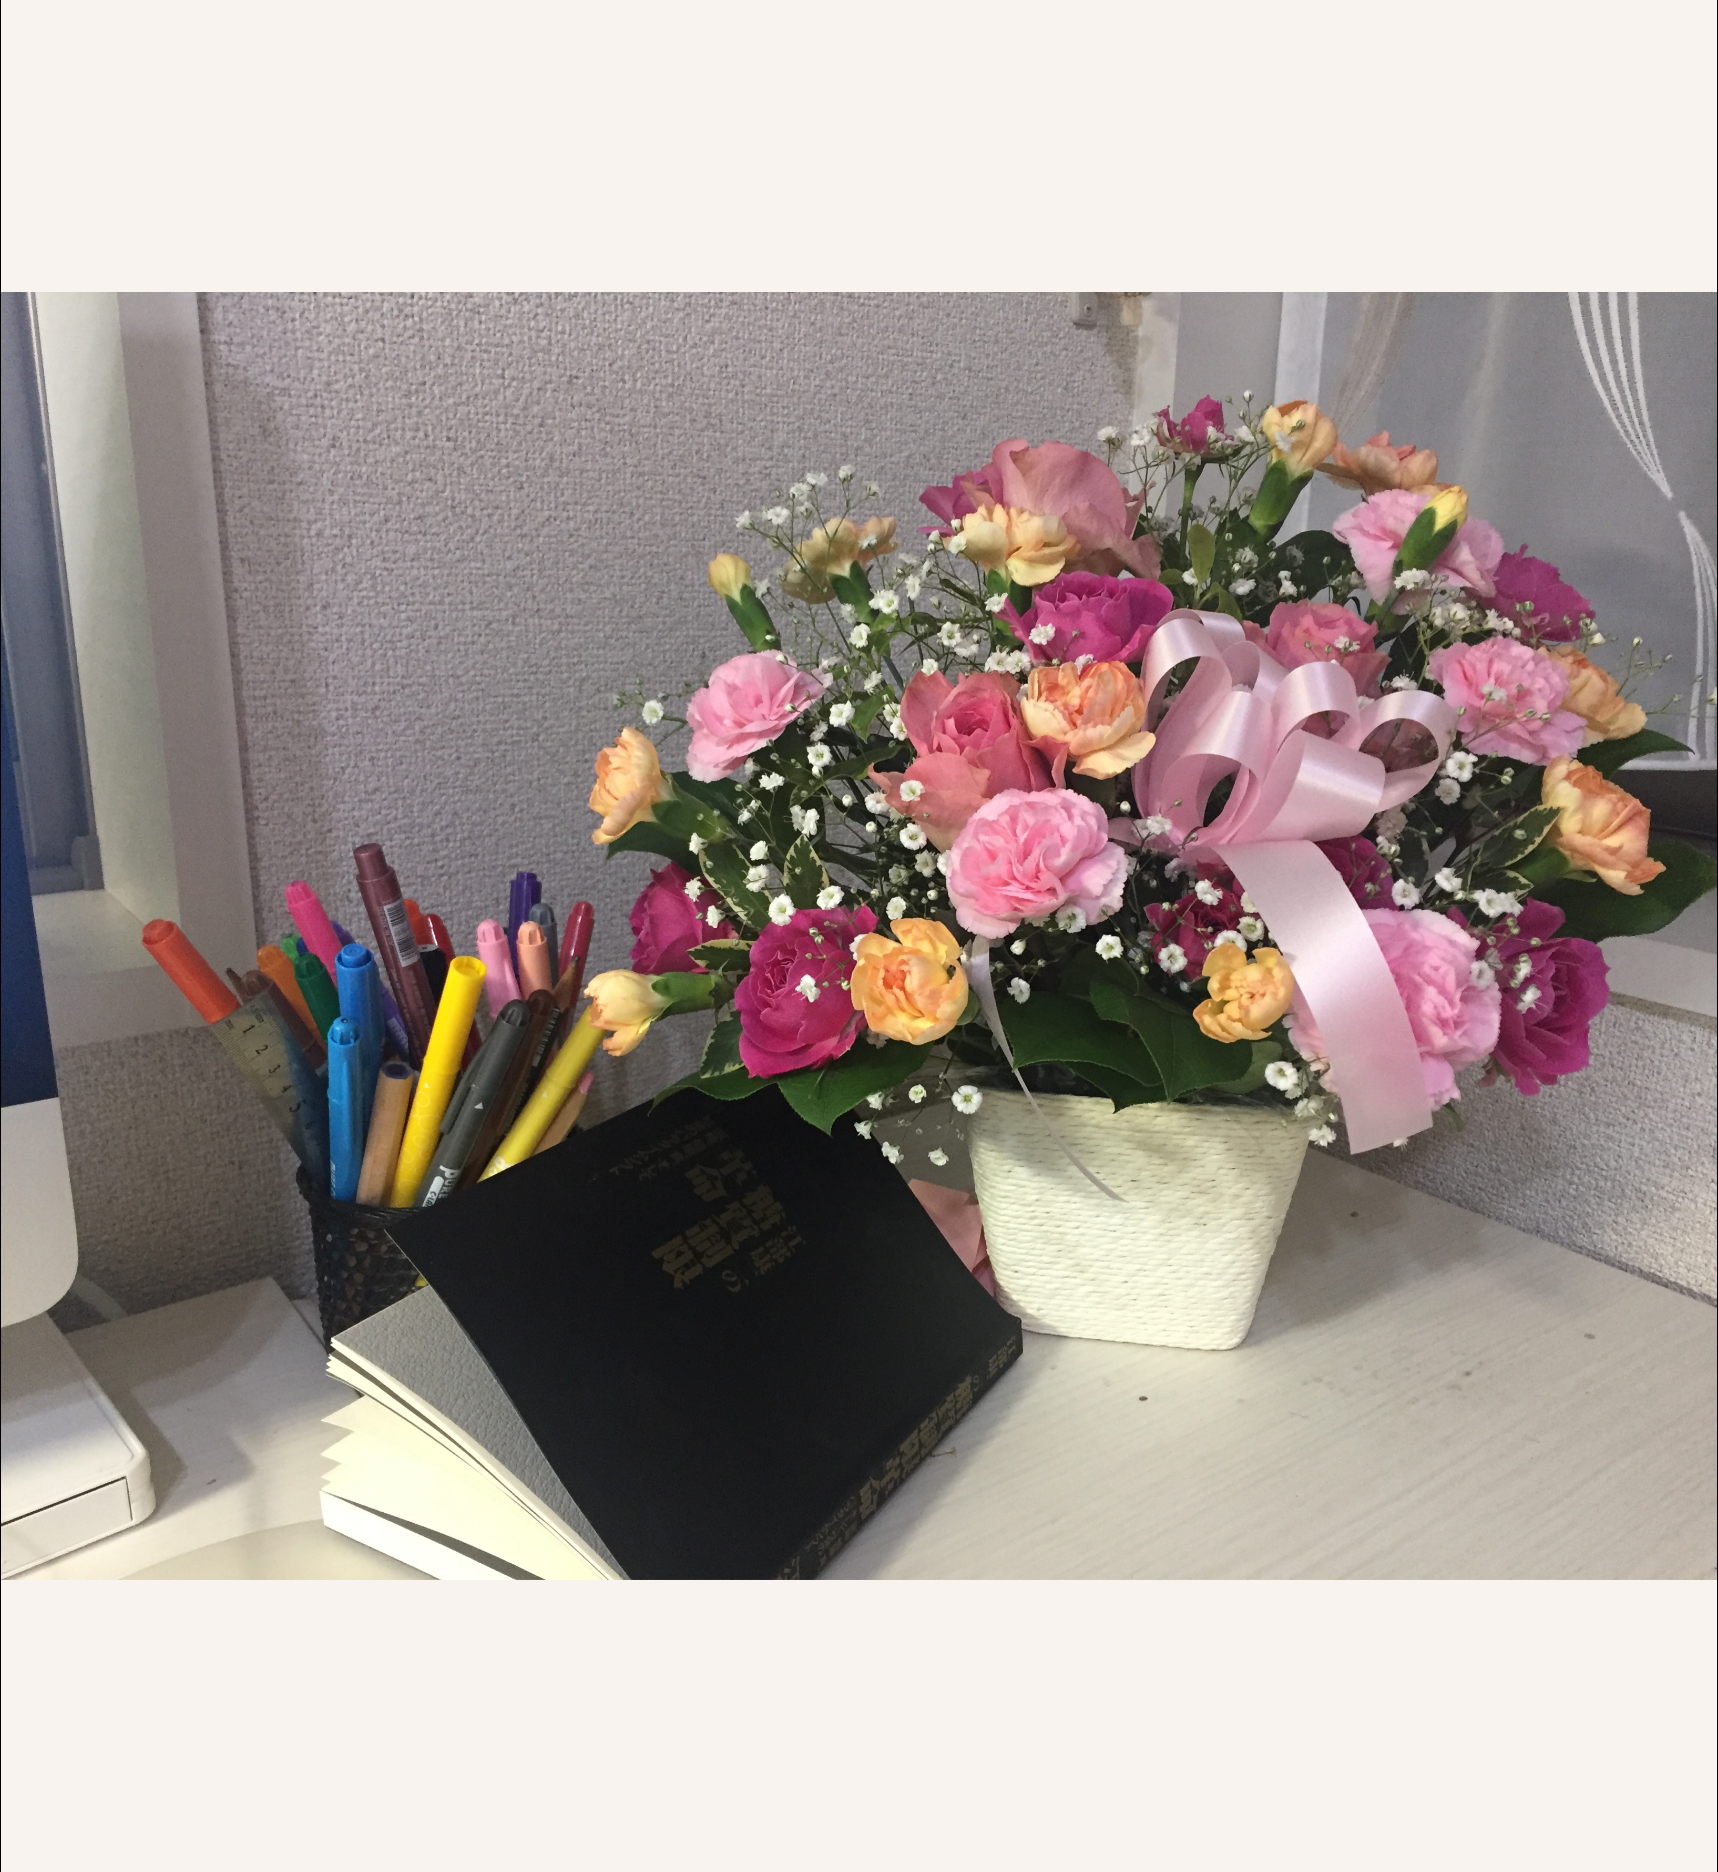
import math
import cairo


def paste(ctx, path, x, y, w, h):
	ctx.save()
	ctx.set_source_surface(cairo.ImageSurface.create_from_png(path), x, y)
	ctx.rectangle(x, y, w, h)
	ctx.fill()
	ctx.restore()

def draw(ctx):
	ctx.set_source_rgb(0, 0, 0)
	ctx.paint()
	ctx.set_source_rgb(0.969, 0.953, 0.937)
	ctx.rectangle(1, 0, 1716, 1872)
	ctx.fill()
	paste(ctx, 'media/1.png', 1, 292, 1716, 1288)


surface = cairo.ImageSurface(cairo.FORMAT_RGB24, 1718, 1872)
ctx = cairo.Context(surface)
options = cairo.FontOptions()
options.set_hint_metrics(cairo.HINT_METRICS_OFF)
options.set_hint_style(cairo.HINT_STYLE_NONE)
ctx.set_font_options(options)
ctx.set_miter_limit(4)
draw(ctx)
surface.write_to_png('image.png')
